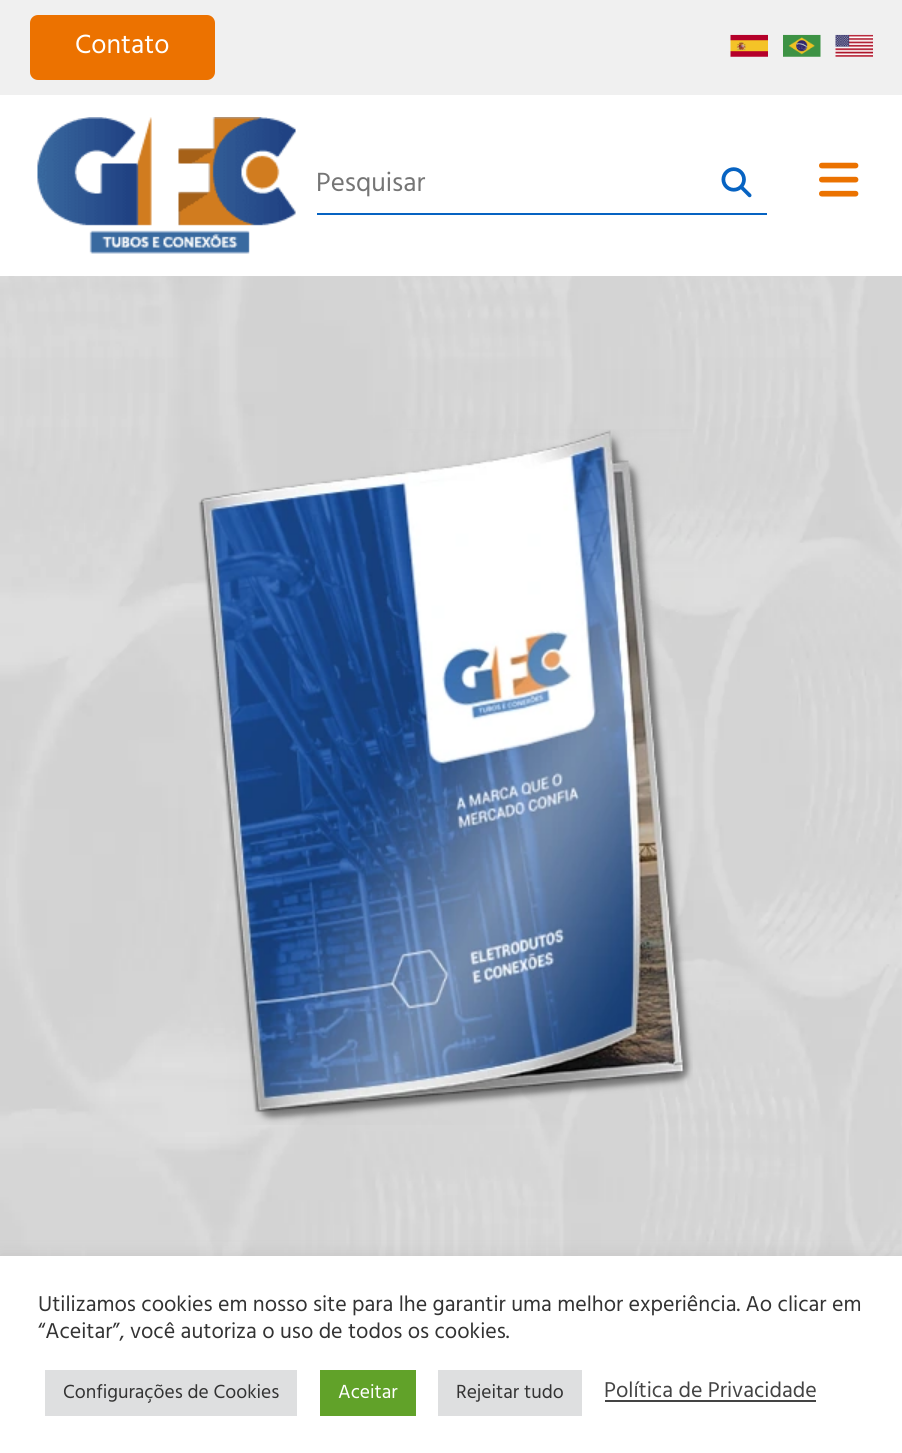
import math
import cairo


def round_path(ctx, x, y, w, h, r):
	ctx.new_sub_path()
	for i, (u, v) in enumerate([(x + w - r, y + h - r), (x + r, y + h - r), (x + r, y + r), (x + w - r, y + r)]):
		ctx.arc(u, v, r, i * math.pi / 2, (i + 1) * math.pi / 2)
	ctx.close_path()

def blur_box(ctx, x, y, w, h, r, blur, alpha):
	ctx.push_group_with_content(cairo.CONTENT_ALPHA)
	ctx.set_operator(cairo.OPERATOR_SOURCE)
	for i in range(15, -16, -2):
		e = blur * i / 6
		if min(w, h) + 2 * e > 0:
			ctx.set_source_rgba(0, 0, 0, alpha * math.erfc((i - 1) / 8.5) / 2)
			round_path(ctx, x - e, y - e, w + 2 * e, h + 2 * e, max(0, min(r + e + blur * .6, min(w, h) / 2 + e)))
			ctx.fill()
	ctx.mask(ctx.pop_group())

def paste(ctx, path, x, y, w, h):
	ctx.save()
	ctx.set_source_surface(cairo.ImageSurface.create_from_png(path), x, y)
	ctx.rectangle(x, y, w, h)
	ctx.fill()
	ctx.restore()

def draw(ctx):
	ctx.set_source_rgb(1, 1, 1)
	ctx.paint()
	ctx.set_source_rgb(0.941, 0.941, 0.941)
	ctx.rectangle(0, 0, 902, 95)
	ctx.fill()
	ctx.set_source_rgb(0.922, 0.447, 0)
	round_path(ctx, 30, 15, 185, 65, 8)
	ctx.fill()
	ctx.select_font_face('Hind')
	ctx.set_font_size(27)
	ctx.set_source_rgb(1, 1, 1)
	ctx.move_to(75, 53)
	ctx.show_text('Contato')
	paste(ctx, 'media/1.png', 730, 34, 38, 23)
	paste(ctx, 'media/2.png', 783, 34, 38, 23)
	paste(ctx, 'media/3.png', 835, 34, 38, 23)
	paste(ctx, 'media/4.png', 37, 117, 259, 137)
	ctx.set_source_rgb(0.027, 0.388, 0.761)
	ctx.rectangle(317, 213, 450, 2)
	ctx.fill()
	ctx.set_source_rgb(0.459, 0.459, 0.459)
	ctx.move_to(316, 191)
	ctx.show_text('Pesquisar')
	paste(ctx, 'media/5.png', 721, 167, 31, 31)
	paste(ctx, 'media/6.png', 819, 162, 40, 35)
	paste(ctx, 'media/7.png', 0, 276, 902, 980)
	paste(ctx, 'media/8.png', 198, 429, 495, 696)
	ctx.set_source_rgb(0.675, 0.671, 0.671)
	blur_box(ctx, 0, 1254, 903, 198, 0, 7.5, 0.3)
	ctx.set_source_rgb(1, 1, 1)
	ctx.rectangle(0, 1256, 902, 197)
	ctx.fill()
	ctx.set_font_size(22)
	ctx.set_source_rgb(0.2, 0.2, 0.2)
	ctx.move_to(38, 1311)
	ctx.show_text('Utilizamos cookies em nosso site para lhe garantir uma melhor experiência. Ao clicar em')
	ctx.move_to(38, 1338)
	ctx.show_text('“Aceitar”, você autoriza o uso de todos os cookies.')
	ctx.set_source_rgb(0.871, 0.875, 0.878)
	ctx.rectangle(45, 1370, 252, 46)
	ctx.fill()
	ctx.set_font_size(19.5)
	ctx.set_source_rgb(0.2, 0.2, 0.2)
	ctx.move_to(63, 1398)
	ctx.show_text('Configurações de Cookies')
	ctx.set_source_rgb(0.38, 0.635, 0.161)
	ctx.rectangle(320, 1370, 96, 46)
	ctx.fill()
	ctx.set_source_rgb(1, 1, 1)
	ctx.move_to(338, 1398)
	ctx.show_text('Aceitar')
	ctx.set_source_rgb(0.871, 0.875, 0.878)
	ctx.rectangle(438, 1370, 144, 46)
	ctx.fill()
	ctx.set_source_rgb(0.2, 0.2, 0.2)
	ctx.move_to(456, 1398)
	ctx.show_text('Rejeitar tudo')
	ctx.set_font_size(22)
	ctx.set_source_rgb(0.267, 0.267, 0.267)
	ctx.move_to(604, 1397)
	ctx.show_text('Política de Privacidade')
	ctx.rectangle(605, 1400, 211, 2)
	ctx.fill()


surface = cairo.ImageSurface(cairo.FORMAT_RGB24, 902, 1453)
ctx = cairo.Context(surface)
options = cairo.FontOptions()
options.set_hint_metrics(cairo.HINT_METRICS_OFF)
options.set_hint_style(cairo.HINT_STYLE_NONE)
ctx.set_font_options(options)
ctx.set_miter_limit(4)
draw(ctx)
surface.write_to_png('image.png')
